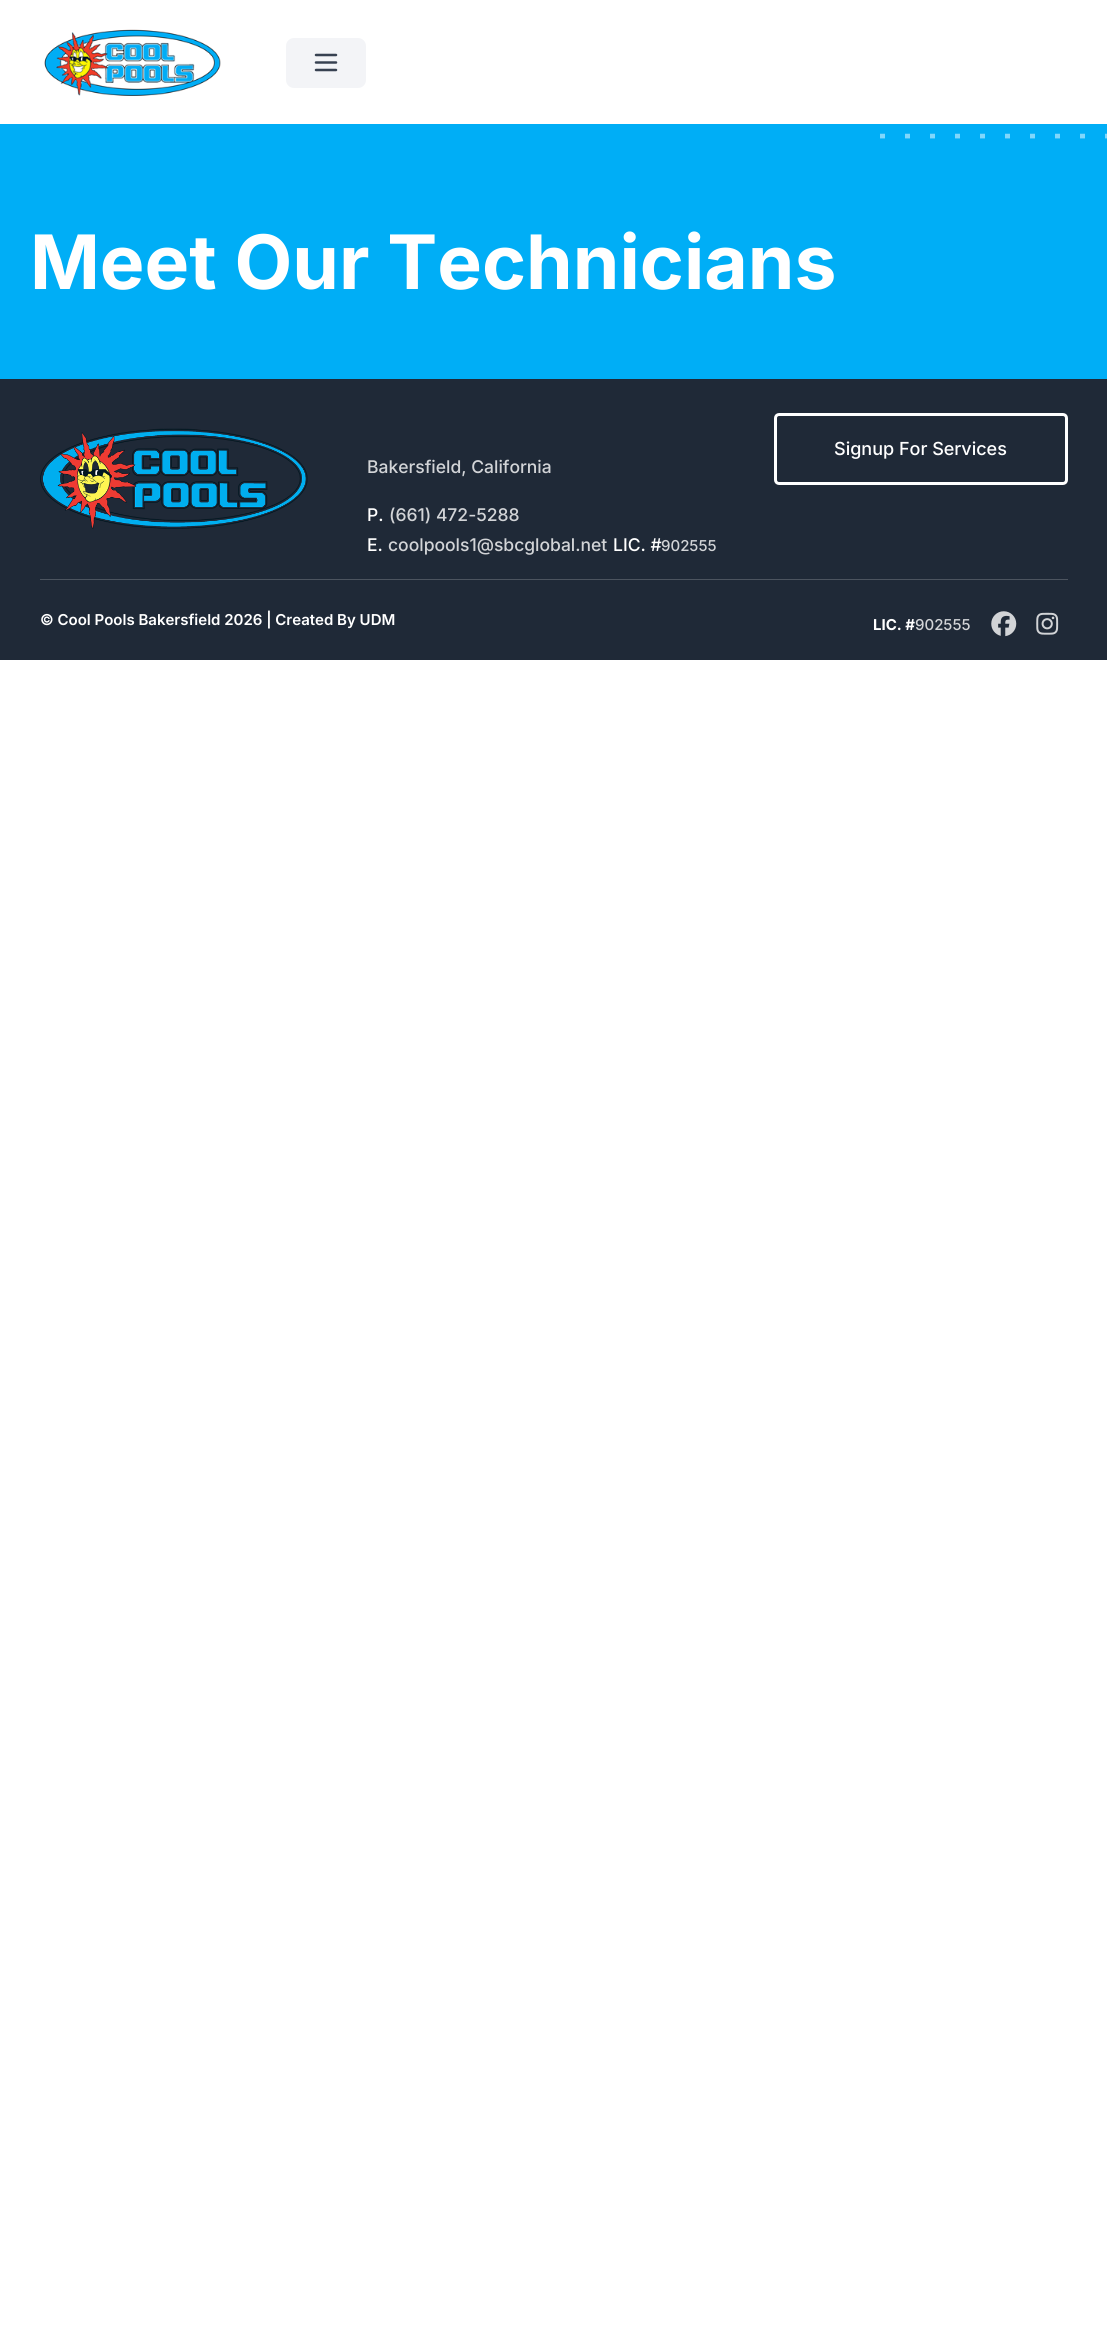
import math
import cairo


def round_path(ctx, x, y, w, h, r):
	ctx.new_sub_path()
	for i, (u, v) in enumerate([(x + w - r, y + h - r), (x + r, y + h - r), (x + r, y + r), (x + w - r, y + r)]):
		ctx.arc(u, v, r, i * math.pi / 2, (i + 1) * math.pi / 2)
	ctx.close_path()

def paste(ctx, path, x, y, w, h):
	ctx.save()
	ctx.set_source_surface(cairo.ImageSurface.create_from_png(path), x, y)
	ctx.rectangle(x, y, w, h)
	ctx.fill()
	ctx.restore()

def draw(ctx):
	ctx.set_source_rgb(1, 1, 1)
	ctx.paint()
	paste(ctx, 'media/1.png', 44, 29, 177, 67)
	ctx.set_source_rgb(0.953, 0.957, 0.965)
	round_path(ctx, 286, 38, 80, 50, 8)
	ctx.fill()
	ctx.new_path()
	ctx.move_to(316, 55)
	ctx.line_to(336, 55)
	ctx.move_to(316, 62.5)
	ctx.line_to(336, 62.5)
	ctx.move_to(316, 70)
	ctx.line_to(336, 70)
	ctx.set_source_rgb(0.216, 0.255, 0.318)
	ctx.set_line_width(2.5)
	ctx.set_line_cap(cairo.LINE_CAP_ROUND)
	ctx.set_line_join(cairo.LINE_JOIN_ROUND)
	ctx.stroke()
	ctx.set_source_rgb(0, 0.682, 0.961)
	ctx.rectangle(0, 124, 1107, 255)
	ctx.fill()
	paste(ctx, 'media/2.png', 880, 133, 227, 6)
	ctx.select_font_face('Inter', cairo.FONT_SLANT_NORMAL, cairo.FONT_WEIGHT_BOLD)
	ctx.set_font_size(75)
	ctx.set_source_rgb(1, 1, 1)
	ctx.move_to(30, 289)
	ctx.show_text('Meet Our Technicians')
	ctx.set_source_rgb(0.122, 0.161, 0.216)
	ctx.rectangle(0, 379, 1107, 281)
	ctx.fill()
	round_path(ctx, 775.5, 414.5, 291, 69, 3.5)
	ctx.set_source_rgb(1, 1, 1)
	ctx.set_line_width(3)
	ctx.set_line_cap(cairo.LINE_CAP_BUTT)
	ctx.set_line_join(cairo.LINE_JOIN_MITER)
	ctx.stroke()
	ctx.select_font_face('Inter Medium')
	ctx.set_font_size(18)
	ctx.move_to(834, 455)
	ctx.show_text('Signup For Services')
	paste(ctx, 'media/3.png', 40, 428, 268, 101)
	ctx.set_font_size(17.5)
	ctx.set_source_rgb(0.824, 0.831, 0.843)
	ctx.move_to(367, 473)
	ctx.show_text('Bakersfield, California')
	ctx.set_source_rgb(1, 1, 1)
	ctx.move_to(367, 521)
	ctx.show_text('P.')
	ctx.set_source_rgb(0.824, 0.831, 0.843)
	ctx.move_to(389, 521)
	ctx.show_text('(661) 472-5288')
	ctx.set_source_rgb(1, 1, 1)
	ctx.move_to(367, 551)
	ctx.show_text('E.')
	ctx.set_source_rgb(0.824, 0.831, 0.843)
	ctx.move_to(388, 551)
	ctx.show_text('coolpools1@sbcglobal.net')
	ctx.set_source_rgb(1, 1, 1)
	ctx.move_to(613, 551)
	ctx.show_text('LIC. #')
	ctx.set_font_size(15)
	ctx.set_source_rgb(0.824, 0.831, 0.843)
	ctx.move_to(661, 551)
	ctx.show_text('902555')
	ctx.set_source_rgb(0.298, 0.329, 0.373)
	ctx.rectangle(40, 579, 1028, 1)
	ctx.fill()
	ctx.select_font_face('Inter SemiBold')
	ctx.set_source_rgb(1, 1, 1)
	ctx.move_to(40, 625)
	ctx.show_text('© Cool Pools Bakersfield 2026 | Created By UDM')
	ctx.select_font_face('Inter', cairo.FONT_SLANT_NORMAL, cairo.FONT_WEIGHT_BOLD)
	ctx.move_to(873, 630)
	ctx.show_text('LIC. #')
	ctx.select_font_face('Inter Medium')
	ctx.set_source_rgb(0.824, 0.831, 0.843)
	ctx.move_to(915, 630)
	ctx.show_text('902555')
	paste(ctx, 'media/4.png', 991, 611, 26, 26)
	paste(ctx, 'media/5.png', 1036, 612, 23, 23)


surface = cairo.ImageSurface(cairo.FORMAT_RGB24, 1107, 2352)
ctx = cairo.Context(surface)
options = cairo.FontOptions()
options.set_hint_metrics(cairo.HINT_METRICS_OFF)
options.set_hint_style(cairo.HINT_STYLE_NONE)
ctx.set_font_options(options)
ctx.set_miter_limit(4)
draw(ctx)
surface.write_to_png('image.png')
